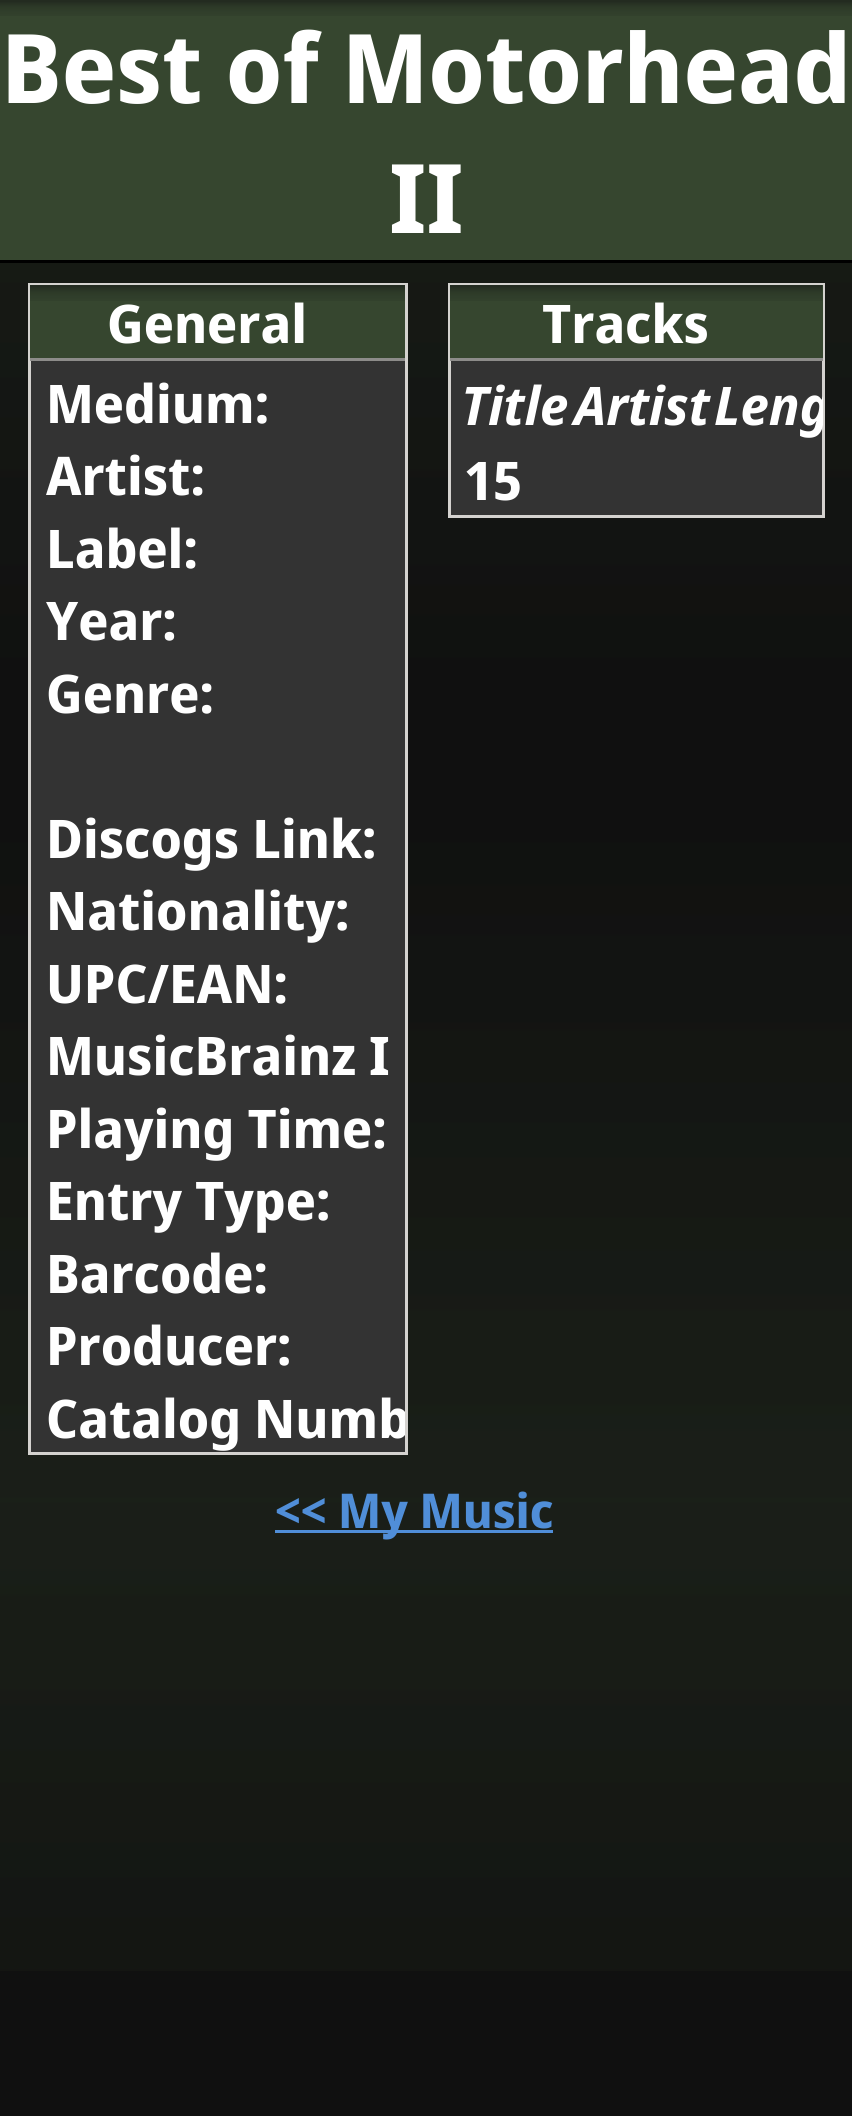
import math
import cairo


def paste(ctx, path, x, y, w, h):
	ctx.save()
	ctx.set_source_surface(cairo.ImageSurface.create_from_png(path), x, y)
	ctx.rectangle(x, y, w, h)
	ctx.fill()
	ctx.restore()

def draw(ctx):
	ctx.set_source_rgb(0.063, 0.063, 0.063)
	ctx.paint()
	paste(ctx, 'media/1.png', 0, 263, 852, 1708)
	ctx.set_source_rgb(0.212, 0.275, 0.184)
	ctx.rectangle(0, 16, 852, 244)
	ctx.fill()
	paste(ctx, 'media/2.png', 0, 0, 852, 16)
	ctx.set_source_rgb(0, 0, 0)
	ctx.rectangle(0, 260, 852, 3)
	ctx.fill()
	ctx.select_font_face('Noto Sans Display', cairo.FONT_SLANT_NORMAL, cairo.FONT_WEIGHT_BOLD)
	ctx.set_font_size(96)
	ctx.set_source_rgb(1, 1, 1)
	ctx.move_to(1, 103)
	ctx.show_text('Best of Motorhead')
	ctx.move_to(389, 233)
	ctx.show_text('II')
	ctx.set_source_rgb(0.2, 0.2, 0.2)
	ctx.rectangle(31, 361, 374, 1091)
	ctx.fill()
	ctx.rectangle(29.5, 284.5, 377, 1169)
	ctx.set_source_rgb(0.831, 0.824, 0.812)
	ctx.set_line_width(3)
	ctx.stroke()
	ctx.set_source_rgb(0.212, 0.275, 0.184)
	ctx.rectangle(30, 301, 375, 57)
	ctx.fill()
	paste(ctx, 'media/3.png', 30, 285, 375, 16)
	ctx.set_source_rgb(0.553, 0.549, 0.541)
	ctx.rectangle(30, 358, 375, 3)
	ctx.fill()
	ctx.set_font_size(53.25)
	ctx.set_source_rgb(1, 1, 1)
	for x, y, s in [
		(107, 343, 'General'),
		(46, 423, 'Medium:'),
		(46, 495, 'Artist:'),
		(46, 568, 'Label:'),
		(46, 640, 'Year:'),
		(46, 713, 'Genre:'),
		(46, 858, 'Discogs Link:'),
		(46, 930, 'Nationality:'),
		(46, 1003, 'UPC/EAN:'),
		(46, 1075, 'MusicBrainz I'),
		(46, 1148, 'Playing Time:'),
		(46, 1220, 'Entry Type:'),
		(46, 1293, 'Barcode:'),
		(46, 1365, 'Producer:'),
	]:
		ctx.move_to(x, y)
		ctx.show_text(s)
	ctx.save()
	ctx.rectangle(30, 285, 375, 1168)
	ctx.clip()
	ctx.move_to(46, 1438)
	ctx.show_text('Catalog Numb')
	ctx.restore()
	ctx.set_source_rgb(0.2, 0.2, 0.2)
	ctx.rectangle(451, 361, 371, 154)
	ctx.fill()
	ctx.rectangle(449.5, 284.5, 374, 232)
	ctx.set_source_rgb(0.831, 0.824, 0.812)
	ctx.stroke()
	ctx.set_source_rgb(0.212, 0.275, 0.184)
	ctx.rectangle(450, 285, 373, 73)
	ctx.fill()
	paste(ctx, 'media/4.png', 450, 285, 373, 16)
	ctx.set_source_rgb(0.553, 0.549, 0.541)
	ctx.rectangle(450, 358, 373, 3)
	ctx.fill()
	ctx.set_source_rgb(1, 1, 1)
	ctx.move_to(542, 343)
	ctx.show_text('Tracks')
	ctx.select_font_face('Noto Sans Display', cairo.FONT_SLANT_ITALIC, cairo.FONT_WEIGHT_BOLD)
	ctx.move_to(461, 425)
	ctx.show_text('Title')
	ctx.move_to(574, 425)
	ctx.show_text('Artist')
	ctx.save()
	ctx.rectangle(450, 285, 373, 230)
	ctx.clip()
	ctx.move_to(714, 425)
	ctx.show_text('Leng')
	ctx.restore()
	ctx.select_font_face('Noto Sans Display', cairo.FONT_SLANT_NORMAL, cairo.FONT_WEIGHT_BOLD)
	ctx.move_to(464, 500)
	ctx.show_text('15')
	ctx.set_source_rgb(0.314, 0.557, 0.847)
	ctx.rectangle(275, 1530, 278, 3)
	ctx.fill()
	ctx.set_font_size(48)
	ctx.move_to(275, 1528)
	ctx.show_text('<< My Music')


surface = cairo.ImageSurface(cairo.FORMAT_RGB24, 852, 2116)
ctx = cairo.Context(surface)
options = cairo.FontOptions()
options.set_hint_metrics(cairo.HINT_METRICS_OFF)
options.set_hint_style(cairo.HINT_STYLE_NONE)
ctx.set_font_options(options)
ctx.set_miter_limit(4)
draw(ctx)
surface.write_to_png('image.png')
